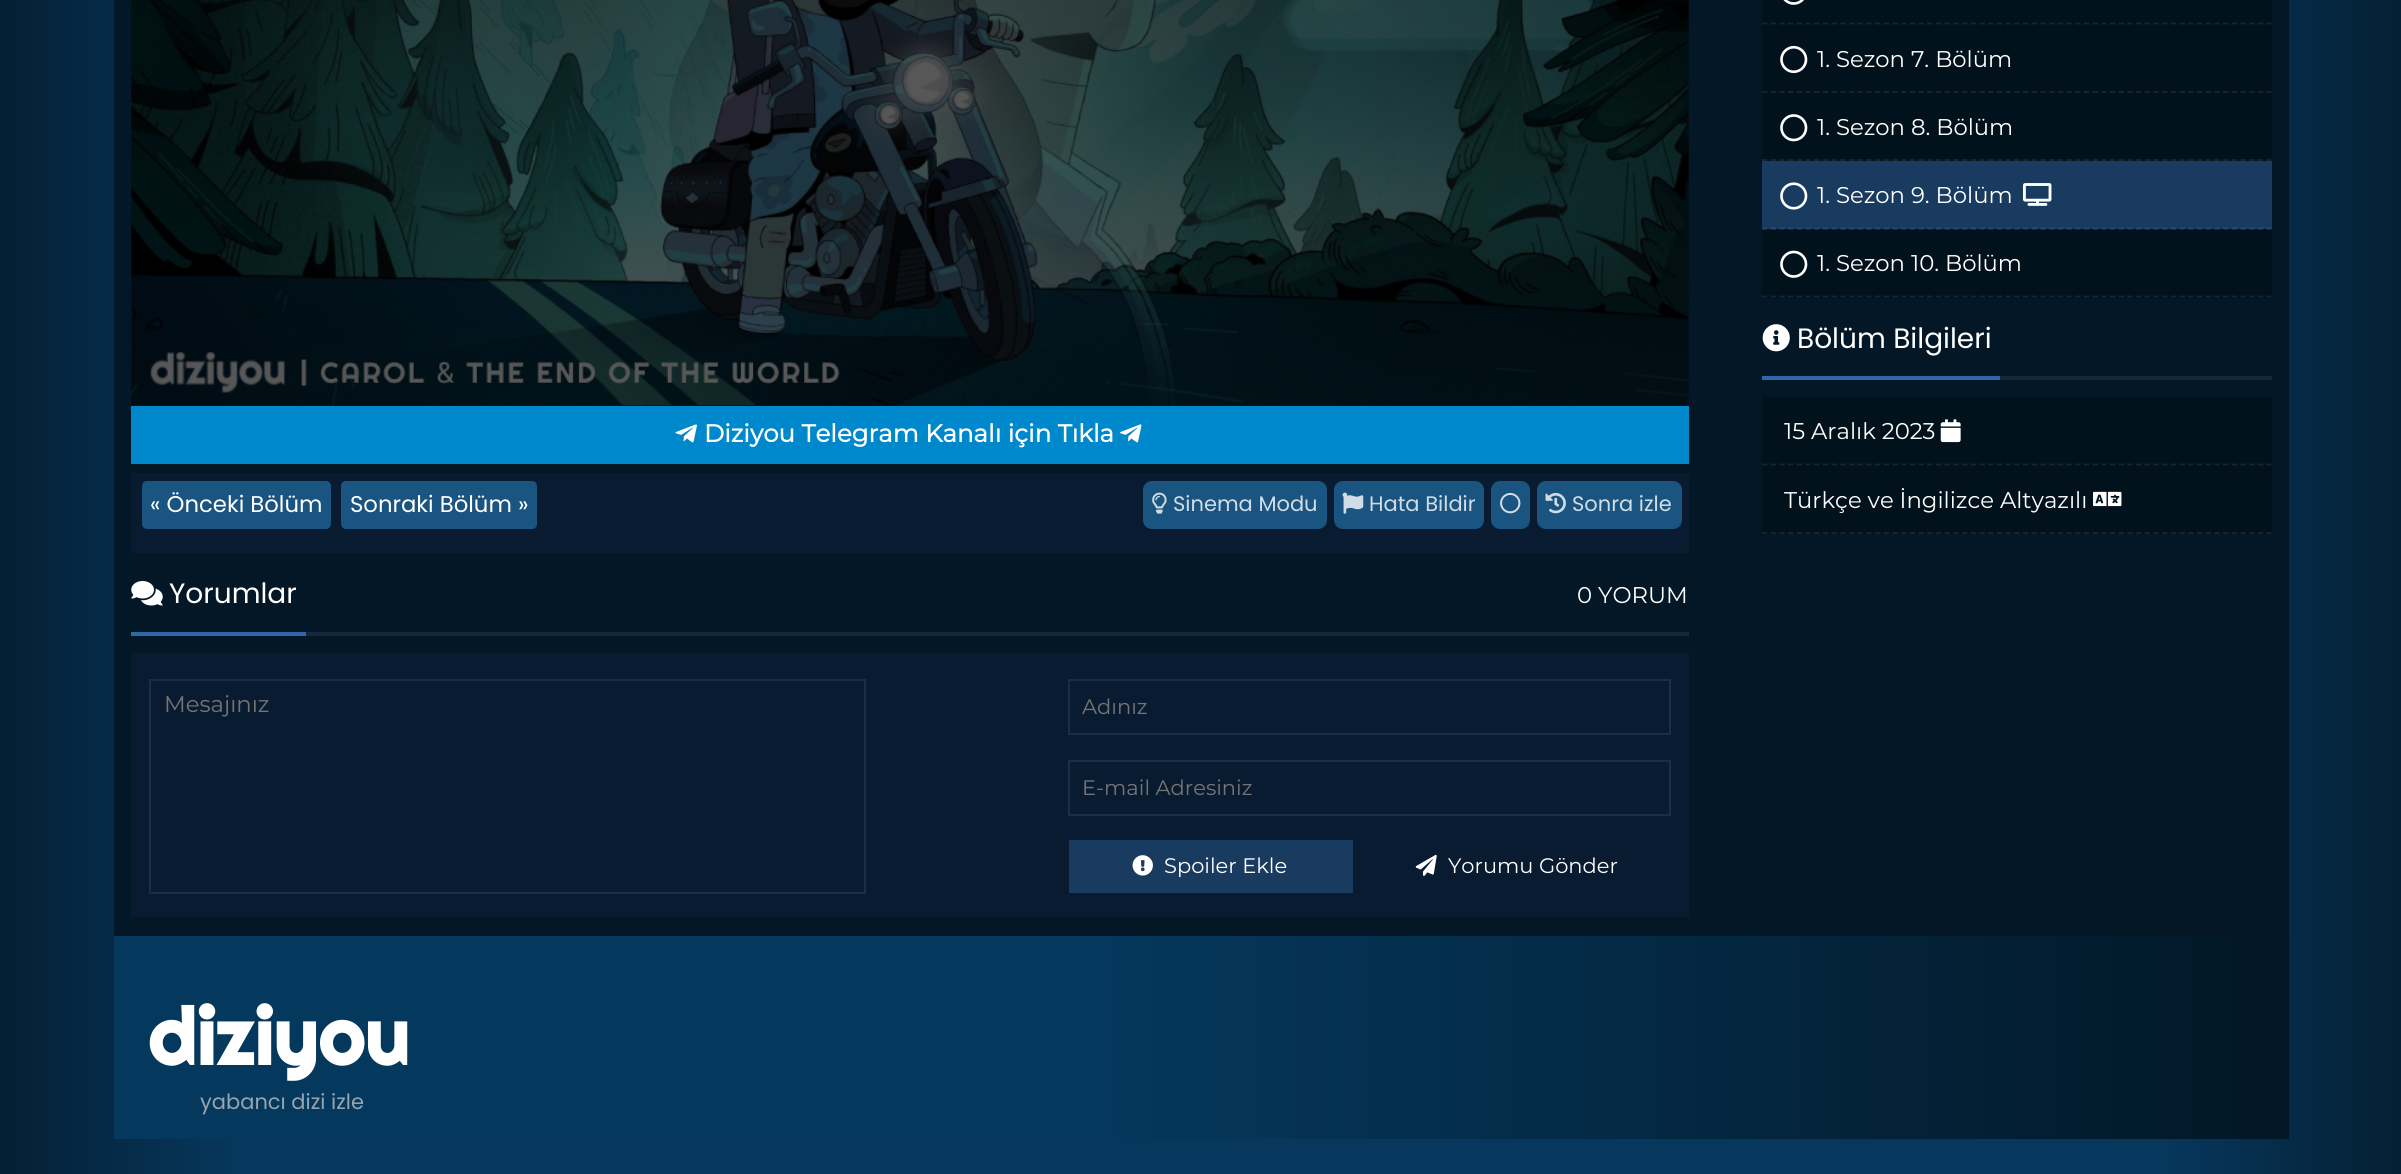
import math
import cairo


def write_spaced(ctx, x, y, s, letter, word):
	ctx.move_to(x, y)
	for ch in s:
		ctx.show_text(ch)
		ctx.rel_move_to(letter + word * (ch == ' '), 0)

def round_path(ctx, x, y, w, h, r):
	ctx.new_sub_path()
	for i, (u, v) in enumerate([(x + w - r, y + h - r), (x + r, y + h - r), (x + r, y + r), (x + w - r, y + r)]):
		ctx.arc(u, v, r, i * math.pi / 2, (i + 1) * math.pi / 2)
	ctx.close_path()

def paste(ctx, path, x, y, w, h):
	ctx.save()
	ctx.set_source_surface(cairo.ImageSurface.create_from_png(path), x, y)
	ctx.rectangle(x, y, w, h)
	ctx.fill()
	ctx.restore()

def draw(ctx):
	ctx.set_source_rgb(1, 1, 1)
	ctx.paint()
	gradient = cairo.LinearGradient(0, 88, 2401, 88)
	gradient.add_color_stop_rgba(0, 0.016, 0.122, 0.204, 1)
	gradient.add_color_stop_rgba(0.1, 0.027, 0.216, 0.365, 1)
	gradient.add_color_stop_rgba(0.9, 0.027, 0.216, 0.365, 1)
	gradient.add_color_stop_rgba(1, 0.016, 0.125, 0.204, 1)
	ctx.set_source(gradient)
	ctx.rectangle(0, 0, 2401, 1174)
	ctx.fill()
	ctx.set_source_rgb(0.012, 0.09, 0.149)
	ctx.rectangle(114, 0, 2175, 936)
	ctx.fill()
	paste(ctx, 'media/1.png', 131, 0, 1558, 406)
	ctx.set_source_rgb(0, 0.533, 0.8)
	ctx.rectangle(131, 406, 1558, 58)
	ctx.fill()
	paste(ctx, 'media/2.png', 675, 424, 22, 19)
	ctx.select_font_face('Montserrat', cairo.FONT_SLANT_NORMAL, cairo.FONT_WEIGHT_BOLD)
	ctx.set_font_size(24.5)
	ctx.set_source_rgb(1, 1, 1)
	ctx.move_to(704, 442)
	ctx.show_text('Diziyou Telegram Kanalı için Tıkla')
	paste(ctx, 'media/3.png', 1120, 424, 22, 19)
	ctx.set_source_rgb(0.039, 0.106, 0.188)
	ctx.rectangle(131, 473, 1558, 80)
	ctx.fill()
	ctx.set_source_rgb(0.102, 0.329, 0.502)
	round_path(ctx, 142, 481, 189, 48, 5)
	ctx.fill()
	ctx.select_font_face('Poppins')
	ctx.set_font_size(22.75)
	ctx.set_source_rgb(1, 1, 1)
	ctx.move_to(150, 512)
	ctx.show_text('« Önceki Bölüm')
	ctx.set_source_rgb(0.102, 0.329, 0.502)
	round_path(ctx, 341, 481, 196, 48, 5)
	ctx.fill()
	ctx.set_source_rgb(1, 1, 1)
	ctx.move_to(350, 512)
	ctx.show_text('Sonraki Bölüm »')
	ctx.set_source_rgb(0.102, 0.329, 0.502)
	round_path(ctx, 1143, 481, 184, 48, 9)
	ctx.fill()
	paste(ctx, 'media/4.png', 1152, 492, 15, 22)
	ctx.set_font_size(21)
	ctx.set_source_rgb(0.82, 0.867, 0.902)
	ctx.move_to(1173, 511)
	ctx.show_text('Sinema Modu')
	ctx.set_source_rgb(0.102, 0.329, 0.502)
	round_path(ctx, 1334, 481, 150, 48, 9)
	ctx.fill()
	paste(ctx, 'media/5.png', 1342, 492, 22, 22)
	ctx.set_source_rgb(0.82, 0.867, 0.902)
	ctx.move_to(1369, 511)
	ctx.show_text('Hata Bildir')
	ctx.set_source_rgb(0.102, 0.329, 0.502)
	round_path(ctx, 1491, 481, 39, 48, 9)
	ctx.fill()
	paste(ctx, 'media/6.png', 1500, 492, 21, 22)
	round_path(ctx, 1537, 481, 145, 48, 9)
	ctx.fill()
	paste(ctx, 'media/7.png', 1545, 493, 21, 21)
	ctx.set_source_rgb(0.82, 0.867, 0.902)
	ctx.move_to(1572, 511)
	ctx.show_text('Sonra izle')
	ctx.set_source_rgb(0.008, 0.071, 0.114)
	ctx.rectangle(1762, 0, 510, 298)
	ctx.fill()
	ctx.new_path()
	ctx.move_to(1762, 23.5)
	ctx.line_to(2271.5, 23.5)
	ctx.set_source_rgb(0.086, 0.141, 0.204)
	ctx.set_line_width(1.8)
	ctx.set_dash([5.25, 3.45])
	ctx.stroke()
	paste(ctx, 'media/8.png', 1783, 0, 21, 5)
	ctx.new_path()
	ctx.move_to(1762, 92)
	ctx.line_to(2271.5, 92)
	ctx.stroke()
	paste(ctx, 'media/9.png', 1780, 45, 28, 29)
	ctx.select_font_face('Montserrat Thin')
	ctx.set_font_size(22.75)
	ctx.set_source_rgb(1, 1, 1)
	ctx.move_to(1817, 67)
	ctx.show_text('1. Sezon 7. Bölüm')
	ctx.new_path()
	ctx.move_to(1762, 160)
	ctx.line_to(2271.5, 160)
	ctx.set_source_rgb(0.086, 0.141, 0.204)
	ctx.stroke()
	paste(ctx, 'media/10.png', 1780, 114, 28, 28)
	ctx.set_source_rgb(1, 1, 1)
	ctx.move_to(1817, 135)
	ctx.show_text('1. Sezon 8. Bölüm')
	ctx.set_source_rgb(0.098, 0.231, 0.376)
	ctx.rectangle(1762, 161, 510, 68)
	ctx.fill()
	ctx.new_path()
	ctx.move_to(1762, 228.5)
	ctx.line_to(2271.5, 228.5)
	ctx.set_source_rgb(0.169, 0.286, 0.439)
	ctx.stroke()
	paste(ctx, 'media/11.png', 1780, 182, 28, 28)
	ctx.set_source_rgb(1, 1, 1)
	ctx.move_to(1817, 203)
	ctx.show_text('1. Sezon 9. Bölüm')
	paste(ctx, 'media/12.png', 2023, 183, 29, 23)
	ctx.new_path()
	ctx.move_to(1762, 296.5)
	ctx.line_to(2271.5, 296.5)
	ctx.set_source_rgb(0.086, 0.141, 0.204)
	ctx.stroke()
	paste(ctx, 'media/13.png', 1780, 250, 28, 28)
	ctx.set_source_rgb(1, 1, 1)
	ctx.move_to(1817, 271)
	ctx.show_text('1. Sezon 10. Bölüm')
	ctx.set_source_rgb(0.09, 0.157, 0.235)
	ctx.rectangle(2000, 376, 272, 4)
	ctx.fill()
	ctx.set_source_rgb(0.176, 0.408, 0.663)
	ctx.rectangle(1762, 376, 238, 4)
	ctx.fill()
	paste(ctx, 'media/14.png', 1762, 324, 28, 28)
	ctx.select_font_face('Poppins')
	ctx.set_font_size(28)
	ctx.set_source_rgb(1, 1, 1)
	ctx.move_to(1797, 348)
	ctx.show_text('Bölüm Bilgileri')
	ctx.set_source_rgb(0.008, 0.071, 0.114)
	ctx.rectangle(1762, 397, 510, 137)
	ctx.fill()
	ctx.new_path()
	ctx.move_to(1762, 464.5)
	ctx.line_to(2271.5, 464.5)
	ctx.set_source_rgb(0.086, 0.141, 0.204)
	ctx.stroke()
	ctx.select_font_face('Montserrat Thin')
	ctx.set_font_size(22.75)
	ctx.set_source_rgb(1, 1, 1)
	ctx.move_to(1784, 439)
	ctx.show_text('15 Aralık 2023')
	paste(ctx, 'media/15.png', 1940, 419, 21, 24)
	ctx.new_path()
	ctx.move_to(1762, 533)
	ctx.line_to(2271.5, 533)
	ctx.set_source_rgb(0.086, 0.141, 0.204)
	ctx.stroke()
	ctx.set_source_rgb(1, 1, 1)
	ctx.move_to(1784, 508)
	ctx.show_text('Türkçe ve İngilizce Altyazılı')
	paste(ctx, 'media/16.png', 2093, 491, 29, 16)
	ctx.set_source_rgb(0.09, 0.157, 0.235)
	ctx.rectangle(306, 632, 1383, 4)
	ctx.fill()
	ctx.set_source_rgb(0.176, 0.408, 0.663)
	ctx.rectangle(131, 632, 175, 4)
	ctx.fill()
	paste(ctx, 'media/17.png', 131, 581, 32, 25)
	ctx.select_font_face('Poppins')
	ctx.set_font_size(28)
	ctx.set_source_rgb(1, 1, 1)
	ctx.move_to(169, 603)
	ctx.show_text('Yorumlar')
	ctx.select_font_face('Montserrat Thin')
	ctx.set_font_size(22.75)
	ctx.move_to(1577, 603)
	ctx.show_text('0 YORUM')
	ctx.set_source_rgb(0.039, 0.106, 0.188)
	ctx.rectangle(131, 653, 1558, 264)
	ctx.fill()
	ctx.rectangle(150, 680, 715, 213)
	ctx.set_source_rgb(0.118, 0.173, 0.271)
	ctx.set_line_width(2)
	ctx.set_dash([])
	ctx.stroke()
	ctx.set_source_rgb(0.459, 0.459, 0.459)
	ctx.move_to(164, 712)
	ctx.show_text('Mesajınız')
	ctx.rectangle(1069, 680, 601, 54)
	ctx.set_source_rgb(0.118, 0.173, 0.271)
	ctx.stroke()
	ctx.set_font_size(21)
	ctx.set_source_rgb(0.459, 0.459, 0.459)
	ctx.move_to(1082, 714)
	ctx.show_text('Adınız')
	ctx.rectangle(1069, 761, 601, 54)
	ctx.set_source_rgb(0.118, 0.173, 0.271)
	ctx.stroke()
	ctx.set_source_rgb(0.459, 0.459, 0.459)
	ctx.move_to(1082, 795)
	ctx.show_text('E-mail Adresiniz')
	ctx.set_source_rgb(0.098, 0.231, 0.376)
	ctx.rectangle(1069, 840, 284, 53)
	ctx.fill()
	paste(ctx, 'media/18.png', 1132, 855, 21, 21)
	ctx.set_source_rgb(1, 1, 1)
	ctx.move_to(1164, 873)
	ctx.show_text('Spoiler Ekle')
	paste(ctx, 'media/19.png', 1415, 854, 22, 22)
	ctx.move_to(1448, 873)
	ctx.show_text('Yorumu Gönder')
	gradient = cairo.LinearGradient(114, 1038, 2289, 1038)
	gradient.add_color_stop_rgba(0.45, 0.02, 0.22, 0.365, 1)
	gradient.add_color_stop_rgba(1, 0.008, 0.09, 0.149, 1)
	ctx.set_source(gradient)
	ctx.rectangle(114, 936, 2175, 203)
	ctx.fill()
	ctx.select_font_face('Righteous', cairo.FONT_SLANT_NORMAL, cairo.FONT_WEIGHT_BOLD)
	ctx.set_font_size(79)
	ctx.set_source_rgb(1, 1, 1)
	write_spaced(ctx, 148, 1065, 'diziyou', 0.5, 0)
	ctx.select_font_face('Poppins')
	ctx.set_font_size(21)
	ctx.set_source_rgb(0.588, 0.647, 0.69)
	ctx.move_to(200, 1109)
	ctx.show_text('yabancı dizi izle')


surface = cairo.ImageSurface(cairo.FORMAT_RGB24, 2401, 1174)
ctx = cairo.Context(surface)
options = cairo.FontOptions()
options.set_hint_metrics(cairo.HINT_METRICS_OFF)
options.set_hint_style(cairo.HINT_STYLE_NONE)
ctx.set_font_options(options)
ctx.set_miter_limit(4)
draw(ctx)
surface.write_to_png('image.png')
